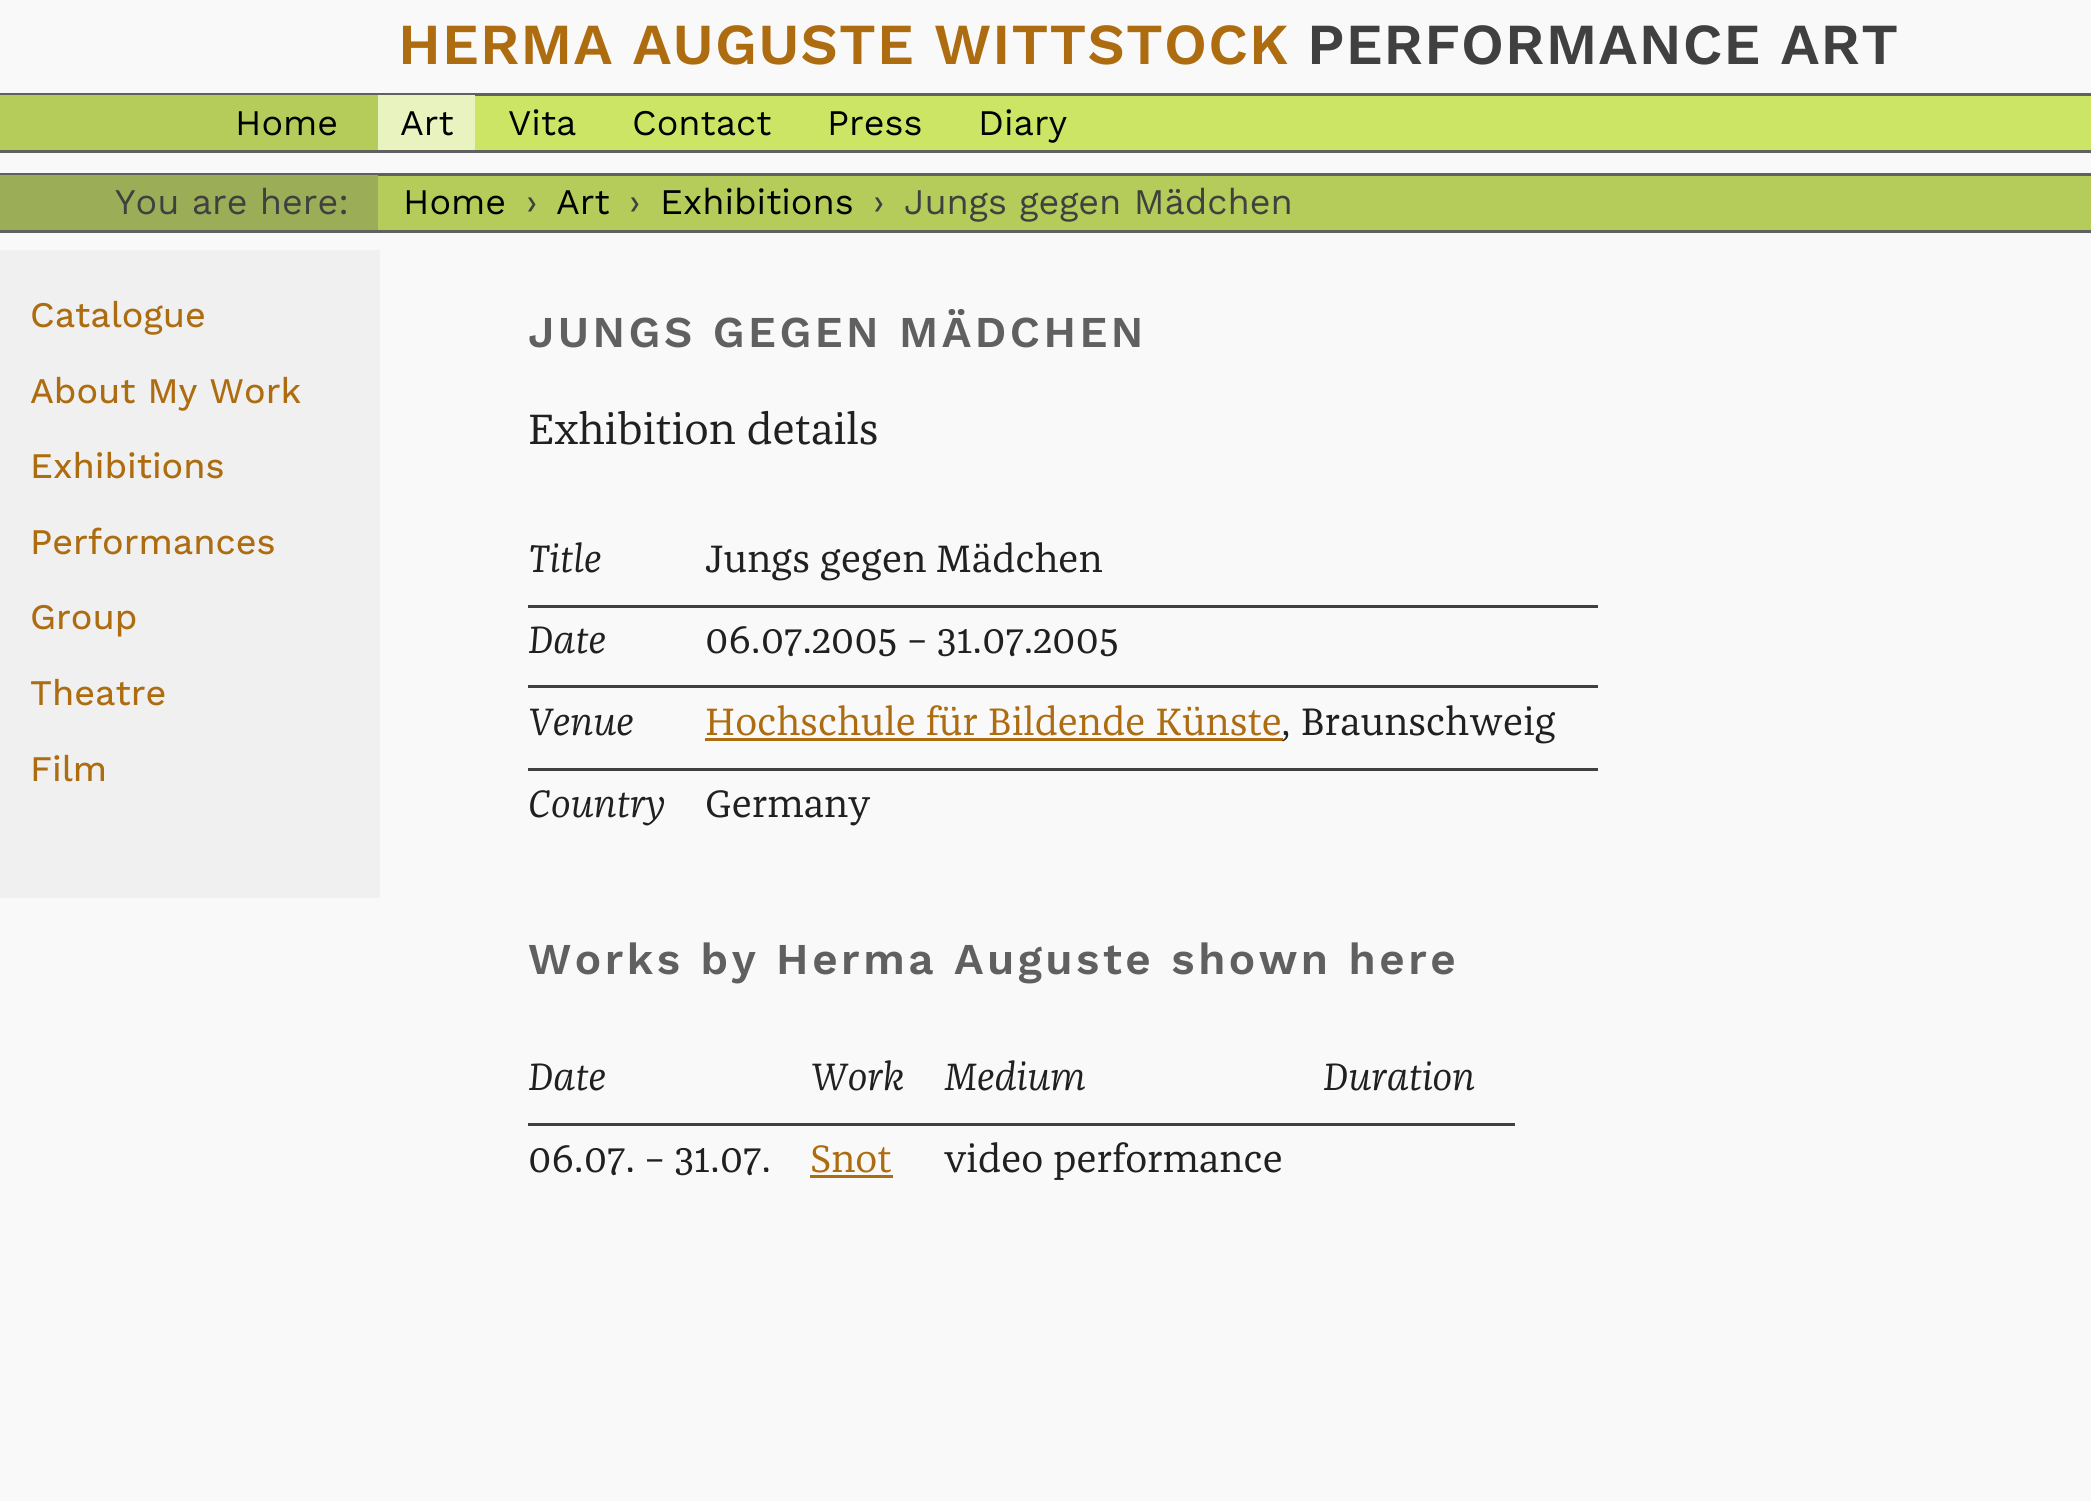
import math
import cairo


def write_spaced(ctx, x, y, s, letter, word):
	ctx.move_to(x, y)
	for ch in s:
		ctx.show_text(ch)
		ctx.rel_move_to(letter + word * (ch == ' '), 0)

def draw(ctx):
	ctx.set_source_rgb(0.973, 0.973, 0.973)
	ctx.paint()
	ctx.select_font_face('Work Sans SemiBold')
	ctx.set_font_size(58)
	ctx.set_source_rgb(0.682, 0.424, 0.063)
	write_spaced(ctx, 398, 64, 'HERMA AUGUSTE WITTSTOCK', 1.2, 0)
	ctx.set_source_rgb(0.251, 0.251, 0.251)
	write_spaced(ctx, 1307, 64, 'PERFORMANCE ART', 1.2, 0)
	ctx.set_source_rgb(0.8, 0.898, 0.396)
	ctx.rectangle(475, 96, 1616, 54)
	ctx.fill()
	ctx.set_source_rgb(0.376, 0.376, 0.376)
	ctx.rectangle(0, 93, 2091, 3)
	ctx.rectangle(0, 150, 2091, 3)
	ctx.fill()
	ctx.set_source_rgb(0.71, 0.8, 0.353)
	ctx.rectangle(0, 95, 378, 55)
	ctx.fill()
	ctx.select_font_face('Work Sans')
	ctx.set_font_size(36)
	ctx.set_source_rgb(0, 0, 0)
	ctx.move_to(235, 135)
	ctx.show_text('Home')
	ctx.set_source_rgb(0.914, 0.953, 0.749)
	ctx.rectangle(378, 95, 97, 55)
	ctx.fill()
	ctx.set_source_rgb(0, 0, 0)
	for x, y, s in [
		(400, 135, 'Art'),
		(508, 135, 'Vita'),
		(632, 135, 'Contact'),
		(827, 135, 'Press'),
		(978, 135, 'Diary'),
	]:
		ctx.move_to(x, y)
		ctx.show_text(s)
	ctx.set_source_rgb(0.71, 0.8, 0.353)
	ctx.rectangle(378, 176, 1713, 54)
	ctx.fill()
	ctx.set_source_rgb(0.376, 0.376, 0.376)
	ctx.rectangle(0, 173, 2091, 3)
	ctx.rectangle(0, 230, 2091, 3)
	ctx.fill()
	ctx.set_source_rgb(0.612, 0.678, 0.341)
	ctx.rectangle(0, 175, 378, 55)
	ctx.fill()
	ctx.set_source_rgb(0.251, 0.251, 0.251)
	ctx.move_to(115, 214)
	ctx.show_text('You are here:')
	ctx.set_source_rgb(0, 0, 0)
	ctx.move_to(403, 214)
	ctx.show_text('Home')
	ctx.set_source_rgb(0.251, 0.251, 0.251)
	ctx.move_to(526, 214)
	ctx.show_text('›')
	ctx.set_source_rgb(0, 0, 0)
	ctx.move_to(556, 214)
	ctx.show_text('Art')
	ctx.set_source_rgb(0.251, 0.251, 0.251)
	ctx.move_to(629, 214)
	ctx.show_text('›')
	ctx.set_source_rgb(0, 0, 0)
	ctx.move_to(660, 214)
	ctx.show_text('Exhibitions')
	ctx.set_source_rgb(0.251, 0.251, 0.251)
	ctx.move_to(873, 214)
	ctx.show_text('›')
	ctx.move_to(904, 214)
	ctx.show_text('Jungs gegen Mädchen')
	ctx.set_source_rgb(0.941, 0.941, 0.941)
	ctx.rectangle(0, 250, 380, 648)
	ctx.fill()
	ctx.select_font_face('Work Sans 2')
	ctx.set_source_rgb(0.682, 0.424, 0.063)
	for x, y, s in [
		(30, 327, 'Catalogue'),
		(30, 403, 'About My Work'),
		(30, 478, 'Exhibitions'),
		(30, 554, 'Performances'),
		(30, 629, 'Group'),
		(30, 705, 'Theatre'),
		(30, 781, 'Film'),
	]:
		ctx.move_to(x, y)
		ctx.show_text(s)
	ctx.select_font_face('Work Sans SemiBold')
	ctx.set_font_size(44)
	ctx.set_source_rgb(0.376, 0.376, 0.376)
	write_spaced(ctx, 528, 347, 'JUNGS GEGEN MÄDCHEN', 3.5, 0)
	ctx.select_font_face('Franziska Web')
	ctx.set_source_rgb(0.125, 0.125, 0.125)
	ctx.move_to(528, 444)
	ctx.show_text('Exhibition details')
	ctx.select_font_face('Franziska Web', cairo.FONT_SLANT_ITALIC)
	ctx.set_font_size(39.6)
	ctx.move_to(528, 572)
	ctx.show_text('Title')
	ctx.select_font_face('Franziska Web')
	ctx.move_to(705, 572)
	ctx.show_text('Jungs gegen Mädchen')
	ctx.set_source_rgb(0.251, 0.251, 0.251)
	ctx.rectangle(528, 605, 1070, 3)
	ctx.fill()
	ctx.select_font_face('Franziska Web', cairo.FONT_SLANT_ITALIC)
	ctx.set_source_rgb(0.125, 0.125, 0.125)
	ctx.move_to(528, 653)
	ctx.show_text('Date')
	ctx.select_font_face('Franziska Web')
	ctx.move_to(705, 653)
	ctx.show_text('06.07.2005 – 31.07.2005')
	ctx.set_source_rgb(0.251, 0.251, 0.251)
	ctx.rectangle(528, 685, 1070, 3)
	ctx.fill()
	ctx.select_font_face('Franziska Web', cairo.FONT_SLANT_ITALIC)
	ctx.set_source_rgb(0.125, 0.125, 0.125)
	ctx.move_to(528, 735)
	ctx.show_text('Venue')
	ctx.select_font_face('Franziska Web')
	ctx.set_source_rgb(0.682, 0.424, 0.063)
	ctx.move_to(705, 735)
	ctx.show_text('Hochschule für Bildende Künste')
	ctx.rectangle(705, 738, 578, 3)
	ctx.fill()
	ctx.set_source_rgb(0.125, 0.125, 0.125)
	ctx.move_to(1281, 735)
	ctx.show_text(', Braunschweig')
	ctx.set_source_rgb(0.251, 0.251, 0.251)
	ctx.rectangle(528, 768, 1070, 3)
	ctx.fill()
	ctx.select_font_face('Franziska Web', cairo.FONT_SLANT_ITALIC)
	ctx.set_source_rgb(0.125, 0.125, 0.125)
	ctx.move_to(528, 817)
	ctx.show_text('Country')
	ctx.select_font_face('Franziska Web')
	ctx.move_to(705, 817)
	ctx.show_text('Germany')
	ctx.select_font_face('Work Sans SemiBold')
	ctx.set_font_size(44)
	ctx.set_source_rgb(0.376, 0.376, 0.376)
	write_spaced(ctx, 528, 974, 'Works by Herma Auguste shown here', 3.5, 0)
	ctx.select_font_face('Franziska Web', cairo.FONT_SLANT_ITALIC)
	ctx.set_font_size(39.6)
	ctx.set_source_rgb(0.125, 0.125, 0.125)
	for x, y, s in [
		(528, 1090, 'Date'),
		(810, 1090, 'Work'),
		(944, 1090, 'Medium'),
		(1323, 1090, 'Duration'),
	]:
		ctx.move_to(x, y)
		ctx.show_text(s)
	ctx.set_source_rgb(0.251, 0.251, 0.251)
	ctx.rectangle(528, 1123, 987, 3)
	ctx.fill()
	ctx.select_font_face('Franziska Web')
	ctx.set_source_rgb(0.125, 0.125, 0.125)
	ctx.move_to(528, 1172)
	ctx.show_text('06.07. – 31.07.')
	ctx.set_source_rgb(0.682, 0.424, 0.063)
	ctx.move_to(810, 1172)
	ctx.show_text('Snot')
	ctx.rectangle(810, 1175, 83, 3)
	ctx.fill()
	ctx.set_source_rgb(0.125, 0.125, 0.125)
	ctx.move_to(944, 1172)
	ctx.show_text('video performance')


surface = cairo.ImageSurface(cairo.FORMAT_RGB24, 2091, 1501)
ctx = cairo.Context(surface)
options = cairo.FontOptions()
options.set_hint_metrics(cairo.HINT_METRICS_OFF)
options.set_hint_style(cairo.HINT_STYLE_NONE)
ctx.set_font_options(options)
ctx.set_miter_limit(4)
draw(ctx)
surface.write_to_png('image.png')
